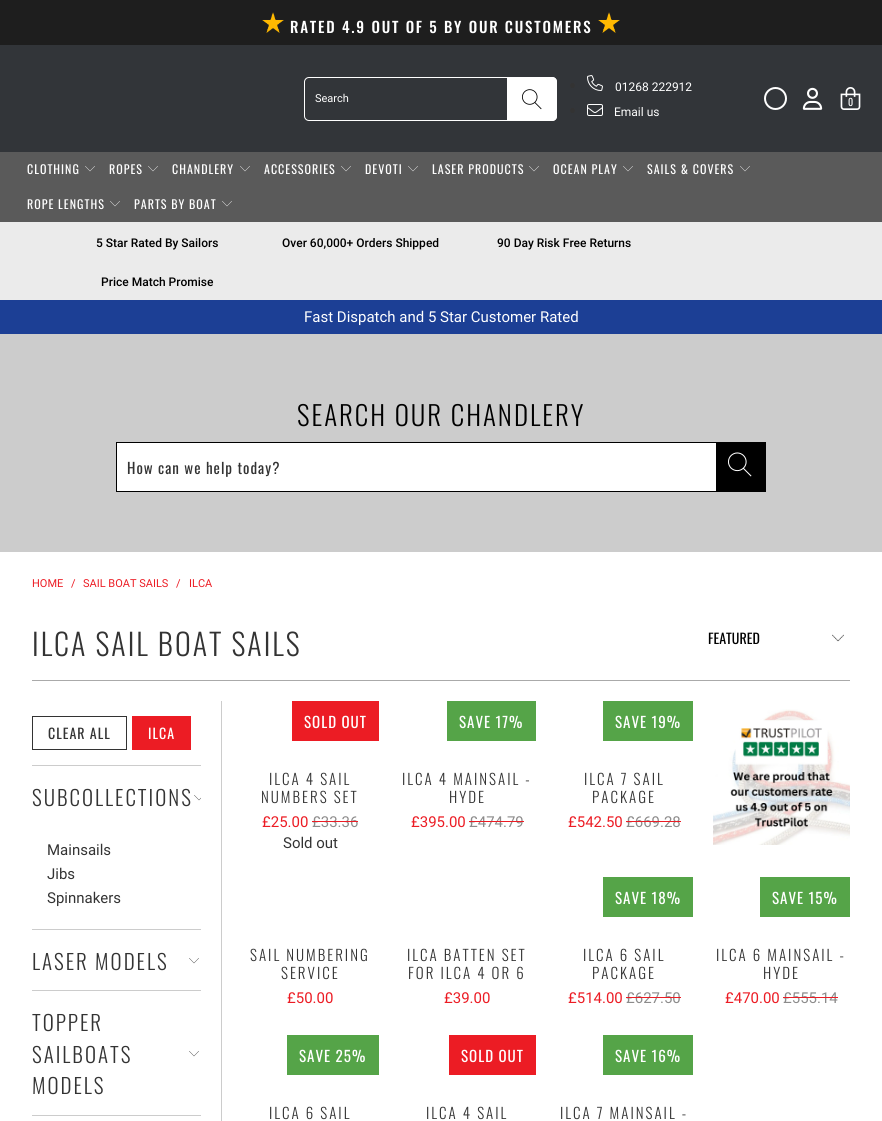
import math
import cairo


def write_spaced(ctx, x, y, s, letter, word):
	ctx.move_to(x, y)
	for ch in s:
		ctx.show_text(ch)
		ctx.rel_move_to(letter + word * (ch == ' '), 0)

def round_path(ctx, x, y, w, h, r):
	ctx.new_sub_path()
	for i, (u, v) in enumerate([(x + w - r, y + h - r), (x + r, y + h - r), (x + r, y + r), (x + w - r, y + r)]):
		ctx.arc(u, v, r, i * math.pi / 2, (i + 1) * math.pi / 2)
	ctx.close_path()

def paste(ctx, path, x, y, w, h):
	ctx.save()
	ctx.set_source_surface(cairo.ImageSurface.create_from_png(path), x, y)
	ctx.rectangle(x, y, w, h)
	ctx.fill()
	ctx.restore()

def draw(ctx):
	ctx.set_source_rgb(1, 1, 1)
	ctx.paint()
	ctx.set_source_rgb(0.196, 0.208, 0.224)
	ctx.rectangle(0, 45, 882, 107)
	ctx.fill()
	ctx.set_source_rgb(0.118, 0.118, 0.118)
	ctx.rectangle(0, 0, 882, 45)
	ctx.fill()
	paste(ctx, 'media/1.png', 262, 12, 22, 21)
	ctx.select_font_face('Oswald Medium')
	ctx.set_font_size(15)
	ctx.set_source_rgb(1, 1, 1)
	write_spaced(ctx, 290, 33, 'RATED 4.9 OUT OF 5 BY OUR CUSTOMERS', 1.8, 0)
	paste(ctx, 'media/2.png', 598, 12, 22, 21)
	ctx.new_path()
	ctx.move_to(507, 77)
	ctx.line_to(552, 77)
	ctx.curve_to(555, 77, 557, 79, 557, 82)
	ctx.line_to(557, 116)
	ctx.curve_to(557, 119, 555, 121, 552, 121)
	ctx.line_to(507, 121)
	ctx.close_path()
	ctx.fill()
	round_path(ctx, 304.5, 77.5, 252, 43, 4.5)
	ctx.set_line_width(1)
	ctx.stroke()
	ctx.select_font_face('Roboto')
	ctx.set_font_size(11)
	ctx.move_to(315, 102)
	ctx.show_text('Search')
	paste(ctx, 'media/3.png', 522, 89, 20, 21)
	ctx.set_source_rgb(0.2, 0.2, 0.2)
	ctx.arc(572.5, 85.5, 2.5, 0, 2 * math.pi)
	ctx.fill()
	paste(ctx, 'media/4.png', 587, 75, 16, 16)
	ctx.set_font_size(12)
	ctx.set_source_rgb(1, 1, 1)
	ctx.move_to(615, 91)
	ctx.show_text('01268 222912')
	ctx.set_source_rgb(0.2, 0.2, 0.2)
	ctx.new_path()
	ctx.arc(572.5, 110.5, 2.5, 0, 2 * math.pi)
	ctx.fill()
	paste(ctx, 'media/5.png', 587, 104, 16, 12)
	ctx.set_source_rgb(1, 1, 1)
	ctx.move_to(614, 116)
	ctx.show_text('Email us')
	ctx.new_path()
	ctx.arc(775.5, 98.5, 10.5, 0, 2 * math.pi)
	ctx.set_line_width(2)
	ctx.stroke()
	paste(ctx, 'media/6.png', 802, 87, 21, 23)
	paste(ctx, 'media/7.png', 840, 87, 21, 23)
	ctx.select_font_face('Oswald')
	ctx.set_font_size(10)
	ctx.move_to(848, 106)
	ctx.show_text('0')
	ctx.set_source_rgb(0.353, 0.353, 0.353)
	ctx.rectangle(0, 152, 882, 70)
	ctx.fill()
	ctx.set_font_size(12)
	ctx.set_source_rgb(1, 1, 1)
	write_spaced(ctx, 27, 174, 'CLOTHING', 1, 0)
	paste(ctx, 'media/8.png', 85, 166, 10, 6)
	write_spaced(ctx, 109, 174, 'ROPES', 1, 0)
	paste(ctx, 'media/8.png', 148, 166, 10, 6)
	write_spaced(ctx, 172, 174, 'CHANDLERY', 1, 0)
	paste(ctx, 'media/8.png', 240, 166, 10, 6)
	write_spaced(ctx, 264, 174, 'ACCESSORIES', 1, 0)
	paste(ctx, 'media/8.png', 341, 166, 10, 6)
	write_spaced(ctx, 365, 174, 'DEVOTI', 1, 0)
	paste(ctx, 'media/8.png', 408, 166, 10, 6)
	write_spaced(ctx, 432, 174, 'LASER PRODUCTS', 1, 0)
	paste(ctx, 'media/8.png', 529, 166, 10, 6)
	write_spaced(ctx, 553, 174, 'OCEAN PLAY', 1, 0)
	paste(ctx, 'media/8.png', 623, 166, 10, 6)
	write_spaced(ctx, 647, 174, 'SAILS & COVERS', 1, 0)
	paste(ctx, 'media/8.png', 740, 166, 10, 6)
	write_spaced(ctx, 27, 209, 'ROPE LENGTHS', 1, 0)
	paste(ctx, 'media/8.png', 110, 201, 10, 6)
	write_spaced(ctx, 134, 209, 'PARTS BY BOAT', 1, 0)
	paste(ctx, 'media/8.png', 222, 201, 10, 6)
	ctx.set_source_rgb(0.918, 0.918, 0.918)
	ctx.rectangle(0, 222, 882, 78)
	ctx.fill()
	ctx.select_font_face('Roboto Medium')
	ctx.set_source_rgb(0, 0, 0)
	for x, y, s in [
		(96, 247, '5 Star Rated By Sailors'),
		(282, 247, 'Over 60,000+ Orders Shipped'),
		(497, 247, '90 Day Risk Free Returns'),
		(101, 286, 'Price Match Promise'),
	]:
		ctx.move_to(x, y)
		ctx.show_text(s)
	ctx.set_source_rgb(0.11, 0.247, 0.584)
	ctx.rectangle(0, 300, 882, 34)
	ctx.fill()
	ctx.select_font_face('Roboto')
	ctx.set_font_size(15)
	ctx.set_source_rgb(1, 1, 1)
	ctx.move_to(304, 322)
	ctx.show_text('Fast Dispatch and 5 Star Customer Rated')
	ctx.set_source_rgb(0.8, 0.8, 0.8)
	ctx.rectangle(0, 334, 882, 218)
	ctx.fill()
	ctx.select_font_face('Oswald Light')
	ctx.set_font_size(27)
	ctx.set_source_rgb(0, 0, 0)
	write_spaced(ctx, 297, 426, 'SEARCH OUR CHANDLERY', 2, 0)
	ctx.set_source_rgb(1, 1, 1)
	ctx.rectangle(117, 443, 599, 48)
	ctx.fill()
	ctx.rectangle(116.5, 442.5, 649, 49)
	ctx.set_source_rgb(0, 0, 0)
	ctx.set_line_width(1)
	ctx.stroke()
	ctx.select_font_face('Oswald')
	ctx.set_font_size(15)
	ctx.set_source_rgb(0.2, 0.2, 0.2)
	write_spaced(ctx, 127, 474, 'How can we help today?', 1, 0)
	ctx.set_source_rgb(0, 0, 0)
	ctx.rectangle(716, 443, 49, 48)
	ctx.fill()
	paste(ctx, 'media/9.png', 728, 452, 24, 25)
	ctx.select_font_face('Roboto')
	ctx.set_font_size(11)
	ctx.set_source_rgb(0.922, 0.11, 0.141)
	for x, y, s in [
		(32, 587, 'HOME'),
		(71, 587, '/'),
		(83, 587, 'SAIL BOAT SAILS'),
		(176, 587, '/'),
		(189, 587, 'ILCA'),
	]:
		ctx.move_to(x, y)
		ctx.show_text(s)
	ctx.select_font_face('Oswald Light')
	ctx.set_font_size(30)
	ctx.set_source_rgb(0.2, 0.2, 0.2)
	write_spaced(ctx, 32, 656, 'ILCA SAIL BOAT SAILS', 2, 0)
	paste(ctx, 'media/10.png', 832, 634, 12, 8)
	ctx.select_font_face('Oswald')
	ctx.set_font_size(14)
	ctx.set_source_rgb(0, 0, 0)
	ctx.move_to(708, 644)
	ctx.show_text('FEATURED')
	ctx.set_source_rgb(0.667, 0.667, 0.667)
	ctx.rectangle(32, 680, 818, 1)
	ctx.fill()
	ctx.set_source_rgb(0.8, 0.8, 0.8)
	ctx.rectangle(221, 701, 1, 420)
	ctx.rectangle(32, 765, 169, 1)
	ctx.fill()
	ctx.rectangle(32.5, 716.5, 94, 33)
	ctx.set_source_rgb(0.2, 0.2, 0.2)
	ctx.stroke()
	write_spaced(ctx, 48, 739, 'CLEAR ALL', 1, 0)
	ctx.set_source_rgb(0.922, 0.11, 0.141)
	ctx.rectangle(132, 716, 59, 34)
	ctx.fill()
	ctx.set_source_rgb(1, 1, 1)
	write_spaced(ctx, 148, 739, 'ILCA', 1, 0)
	ctx.select_font_face('Oswald Light')
	ctx.set_font_size(21)
	ctx.set_source_rgb(0.2, 0.2, 0.2)
	write_spaced(ctx, 32, 806, 'SUBCOLLECTIONS', 2, 0)
	paste(ctx, 'media/11.png', 194, 795, 7, 6)
	ctx.select_font_face('Roboto')
	ctx.set_font_size(15)
	for x, y, s in [
		(47, 855, 'Mainsails'),
		(47, 879, 'Jibs'),
		(47, 903, 'Spinnakers'),
	]:
		ctx.move_to(x, y)
		ctx.show_text(s)
	ctx.set_source_rgb(0.8, 0.8, 0.8)
	ctx.rectangle(32, 929, 169, 1)
	ctx.fill()
	ctx.select_font_face('Oswald Light')
	ctx.set_font_size(21)
	ctx.set_source_rgb(0.2, 0.2, 0.2)
	write_spaced(ctx, 32, 970, 'LASER MODELS', 2, 0)
	paste(ctx, 'media/12.png', 189, 958, 10, 6)
	ctx.set_source_rgb(0.8, 0.8, 0.8)
	ctx.rectangle(32, 990, 169, 1)
	ctx.fill()
	ctx.set_source_rgb(0.2, 0.2, 0.2)
	for x, y, s in [
		(32, 1031, 'TOPPER'),
		(32, 1063, 'SAILBOATS'),
		(32, 1094, 'MODELS'),
	]:
		write_spaced(ctx, x, y, s, 2, 0)
	paste(ctx, 'media/12.png', 189, 1051, 10, 6)
	ctx.set_source_rgb(0.8, 0.8, 0.8)
	ctx.rectangle(32, 1115, 169, 1)
	ctx.fill()
	ctx.set_source_rgb(0.922, 0.11, 0.141)
	ctx.rectangle(292, 701, 87, 40)
	ctx.fill()
	ctx.select_font_face('Oswald')
	ctx.set_font_size(15)
	ctx.set_source_rgb(1, 1, 1)
	write_spaced(ctx, 304, 728, 'SOLD OUT', 1, 0)
	ctx.select_font_face('Oswald Light')
	ctx.set_source_rgb(0.2, 0.2, 0.2)
	write_spaced(ctx, 269, 785, 'ILCA 4 SAIL', 2, 0)
	write_spaced(ctx, 261, 803, 'NUMBERS SET', 2, 0)
	ctx.select_font_face('Roboto')
	ctx.set_source_rgb(0.922, 0.11, 0.141)
	ctx.move_to(262, 827)
	ctx.show_text('£25.00')
	ctx.set_source_rgb(0.549, 0.545, 0.545)
	ctx.move_to(312, 827)
	ctx.show_text('£33.36')
	ctx.set_source_rgb(0.922, 0.11, 0.141)
	ctx.rectangle(312, 821, 46, 1)
	ctx.fill()
	ctx.set_source_rgb(0.2, 0.2, 0.2)
	ctx.move_to(283, 848)
	ctx.show_text('Sold out')
	ctx.set_source_rgb(0.333, 0.643, 0.282)
	ctx.rectangle(447, 701, 89, 40)
	ctx.fill()
	ctx.select_font_face('Oswald')
	ctx.set_source_rgb(1, 1, 1)
	write_spaced(ctx, 459, 728, 'SAVE 17%', 1, 0)
	ctx.select_font_face('Oswald Light')
	ctx.set_source_rgb(0.2, 0.2, 0.2)
	write_spaced(ctx, 402, 785, 'ILCA 4 MAINSAIL -', 2, 0)
	write_spaced(ctx, 449, 803, 'HYDE', 2, 0)
	ctx.select_font_face('Roboto')
	ctx.set_source_rgb(0.922, 0.11, 0.141)
	ctx.move_to(411, 827)
	ctx.show_text('£395.00')
	ctx.set_source_rgb(0.549, 0.545, 0.545)
	ctx.move_to(469, 827)
	ctx.show_text('£474.79')
	ctx.set_source_rgb(0.922, 0.11, 0.141)
	ctx.rectangle(469, 821, 55, 1)
	ctx.fill()
	ctx.set_source_rgb(0.333, 0.643, 0.282)
	ctx.rectangle(603, 701, 90, 40)
	ctx.fill()
	ctx.select_font_face('Oswald')
	ctx.set_source_rgb(1, 1, 1)
	write_spaced(ctx, 615, 728, 'SAVE 19%', 1, 0)
	ctx.select_font_face('Oswald Light')
	ctx.set_source_rgb(0.2, 0.2, 0.2)
	write_spaced(ctx, 584, 785, 'ILCA 7 SAIL', 2, 0)
	write_spaced(ctx, 592, 803, 'PACKAGE', 2, 0)
	ctx.select_font_face('Roboto')
	ctx.set_source_rgb(0.922, 0.11, 0.141)
	ctx.move_to(568, 827)
	ctx.show_text('£542.50')
	ctx.set_source_rgb(0.549, 0.545, 0.545)
	ctx.move_to(626, 827)
	ctx.show_text('£669.28')
	ctx.set_source_rgb(0.922, 0.11, 0.141)
	ctx.rectangle(626, 821, 55, 1)
	ctx.fill()
	paste(ctx, 'media/13.png', 713, 709, 137, 136)
	ctx.select_font_face('Oswald Light')
	ctx.set_source_rgb(0.2, 0.2, 0.2)
	write_spaced(ctx, 250, 961, 'SAIL NUMBERING', 2, 0)
	write_spaced(ctx, 281, 979, 'SERVICE', 2, 0)
	ctx.select_font_face('Roboto')
	ctx.set_source_rgb(0.922, 0.11, 0.141)
	ctx.move_to(287, 1003)
	ctx.show_text('£50.00')
	ctx.select_font_face('Oswald Light')
	ctx.set_source_rgb(0.2, 0.2, 0.2)
	write_spaced(ctx, 407, 961, 'ILCA BATTEN SET', 2, 0)
	write_spaced(ctx, 408, 979, 'FOR ILCA 4 OR 6', 2, 0)
	ctx.select_font_face('Roboto')
	ctx.set_source_rgb(0.922, 0.11, 0.141)
	ctx.move_to(444, 1003)
	ctx.show_text('£39.00')
	ctx.set_source_rgb(0.333, 0.643, 0.282)
	ctx.rectangle(603, 877, 90, 40)
	ctx.fill()
	ctx.select_font_face('Oswald')
	ctx.set_source_rgb(1, 1, 1)
	write_spaced(ctx, 615, 904, 'SAVE 18%', 1, 0)
	ctx.select_font_face('Oswald Light')
	ctx.set_source_rgb(0.2, 0.2, 0.2)
	write_spaced(ctx, 583, 961, 'ILCA 6 SAIL', 2, 0)
	write_spaced(ctx, 592, 979, 'PACKAGE', 2, 0)
	ctx.select_font_face('Roboto')
	ctx.set_source_rgb(0.922, 0.11, 0.141)
	ctx.move_to(568, 1003)
	ctx.show_text('£514.00')
	ctx.set_source_rgb(0.549, 0.545, 0.545)
	ctx.move_to(626, 1003)
	ctx.show_text('£627.50')
	ctx.set_source_rgb(0.922, 0.11, 0.141)
	ctx.rectangle(626, 997, 55, 1)
	ctx.fill()
	ctx.set_source_rgb(0.333, 0.643, 0.282)
	ctx.rectangle(760, 877, 90, 40)
	ctx.fill()
	ctx.select_font_face('Oswald')
	ctx.set_source_rgb(1, 1, 1)
	write_spaced(ctx, 772, 904, 'SAVE 15%', 1, 0)
	ctx.select_font_face('Oswald Light')
	ctx.set_source_rgb(0.2, 0.2, 0.2)
	write_spaced(ctx, 716, 961, 'ILCA 6 MAINSAIL -', 2, 0)
	write_spaced(ctx, 763, 979, 'HYDE', 2, 0)
	ctx.select_font_face('Roboto')
	ctx.set_source_rgb(0.922, 0.11, 0.141)
	ctx.move_to(725, 1003)
	ctx.show_text('£470.00')
	ctx.set_source_rgb(0.549, 0.545, 0.545)
	ctx.move_to(783, 1003)
	ctx.show_text('£555.14')
	ctx.set_source_rgb(0.922, 0.11, 0.141)
	ctx.rectangle(783, 997, 55, 1)
	ctx.fill()
	ctx.set_source_rgb(0.333, 0.643, 0.282)
	ctx.rectangle(287, 1035, 92, 40)
	ctx.fill()
	ctx.select_font_face('Oswald')
	ctx.set_source_rgb(1, 1, 1)
	write_spaced(ctx, 299, 1062, 'SAVE 25%', 1, 0)
	ctx.select_font_face('Oswald Light')
	ctx.set_source_rgb(0.2, 0.2, 0.2)
	write_spaced(ctx, 269, 1119, 'ILCA 6 SAIL', 2, 0)
	ctx.set_source_rgb(0.922, 0.11, 0.141)
	ctx.rectangle(449, 1035, 87, 40)
	ctx.fill()
	ctx.select_font_face('Oswald')
	ctx.set_source_rgb(1, 1, 1)
	write_spaced(ctx, 461, 1062, 'SOLD OUT', 1, 0)
	ctx.select_font_face('Oswald Light')
	ctx.set_source_rgb(0.2, 0.2, 0.2)
	write_spaced(ctx, 426, 1119, 'ILCA 4 SAIL', 2, 0)
	ctx.set_source_rgb(0.333, 0.643, 0.282)
	ctx.rectangle(603, 1035, 90, 40)
	ctx.fill()
	ctx.select_font_face('Oswald')
	ctx.set_source_rgb(1, 1, 1)
	write_spaced(ctx, 615, 1062, 'SAVE 16%', 1, 0)
	ctx.select_font_face('Oswald Light')
	ctx.set_source_rgb(0.2, 0.2, 0.2)
	write_spaced(ctx, 560, 1119, 'ILCA 7 MAINSAIL -', 2, 0)


surface = cairo.ImageSurface(cairo.FORMAT_RGB24, 882, 1121)
ctx = cairo.Context(surface)
options = cairo.FontOptions()
options.set_hint_metrics(cairo.HINT_METRICS_OFF)
options.set_hint_style(cairo.HINT_STYLE_NONE)
ctx.set_font_options(options)
ctx.set_miter_limit(4)
draw(ctx)
surface.write_to_png('image.png')
